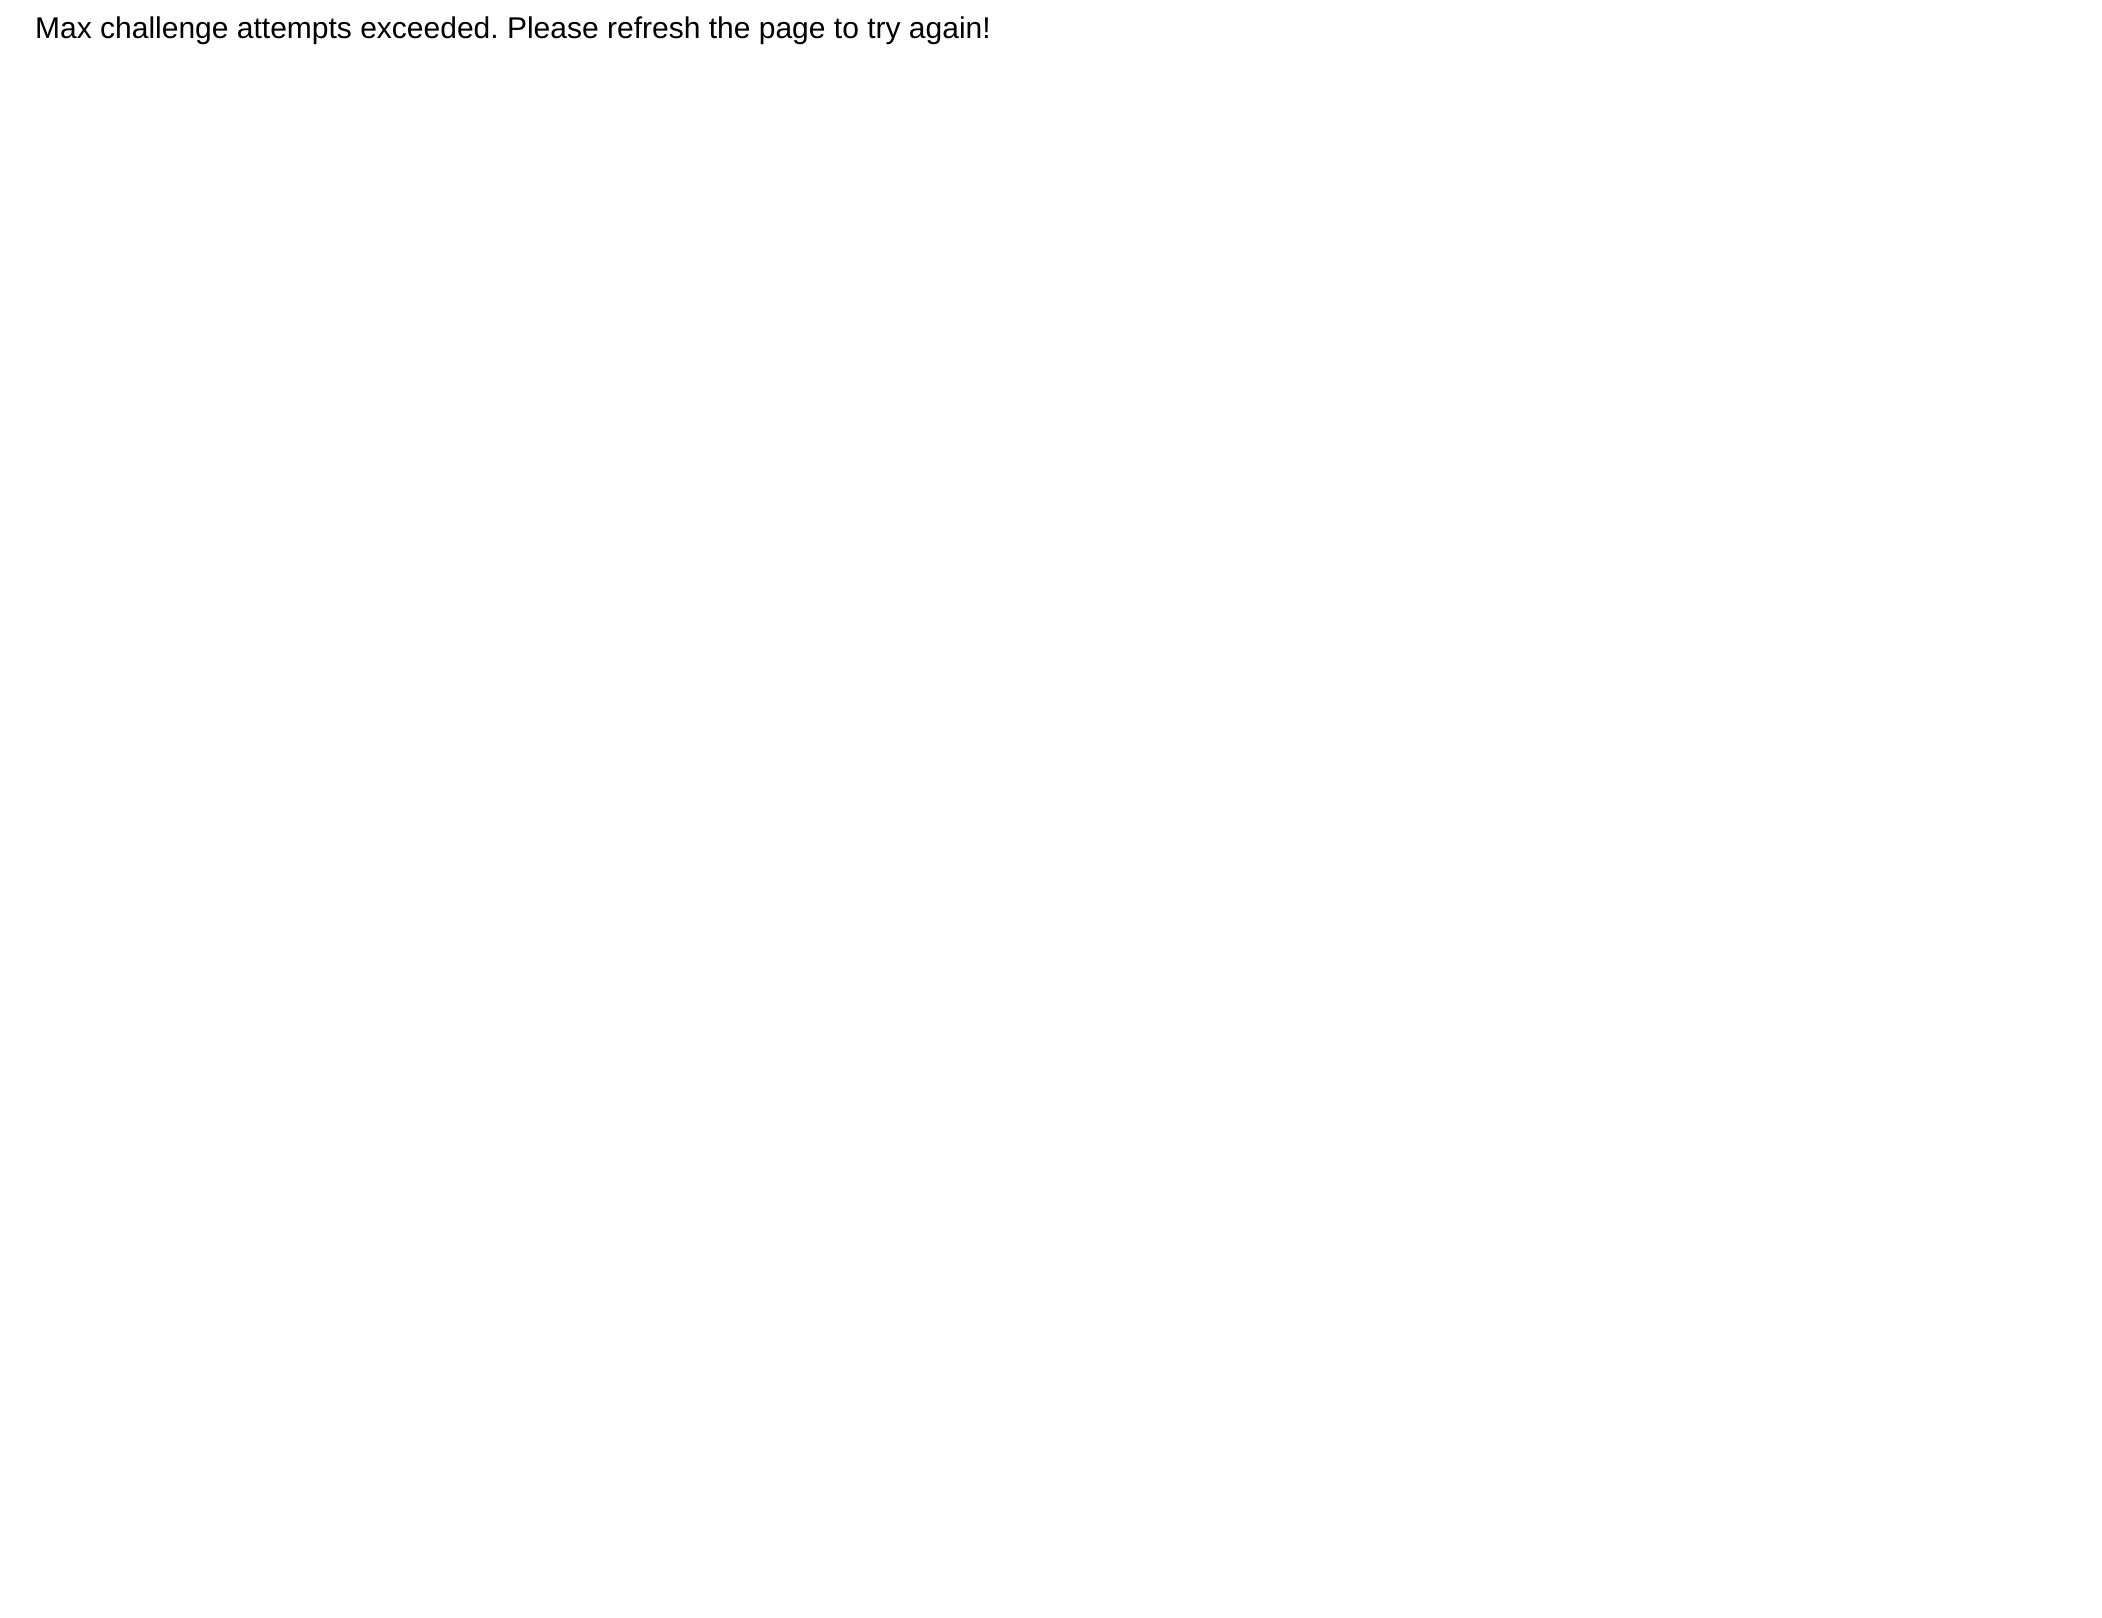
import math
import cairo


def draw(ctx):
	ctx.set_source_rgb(1, 1, 1)
	ctx.paint()
	ctx.select_font_face('Liberation Sans')
	ctx.set_font_size(30)
	ctx.set_source_rgb(0, 0, 0)
	ctx.move_to(35, 38)
	ctx.show_text('Max challenge attempts exceeded. Please refresh the page to try again!')


surface = cairo.ImageSurface(cairo.FORMAT_RGB24, 2102, 1618)
ctx = cairo.Context(surface)
options = cairo.FontOptions()
options.set_hint_metrics(cairo.HINT_METRICS_OFF)
options.set_hint_style(cairo.HINT_STYLE_NONE)
ctx.set_font_options(options)
ctx.set_miter_limit(4)
draw(ctx)
surface.write_to_png('image.png')
